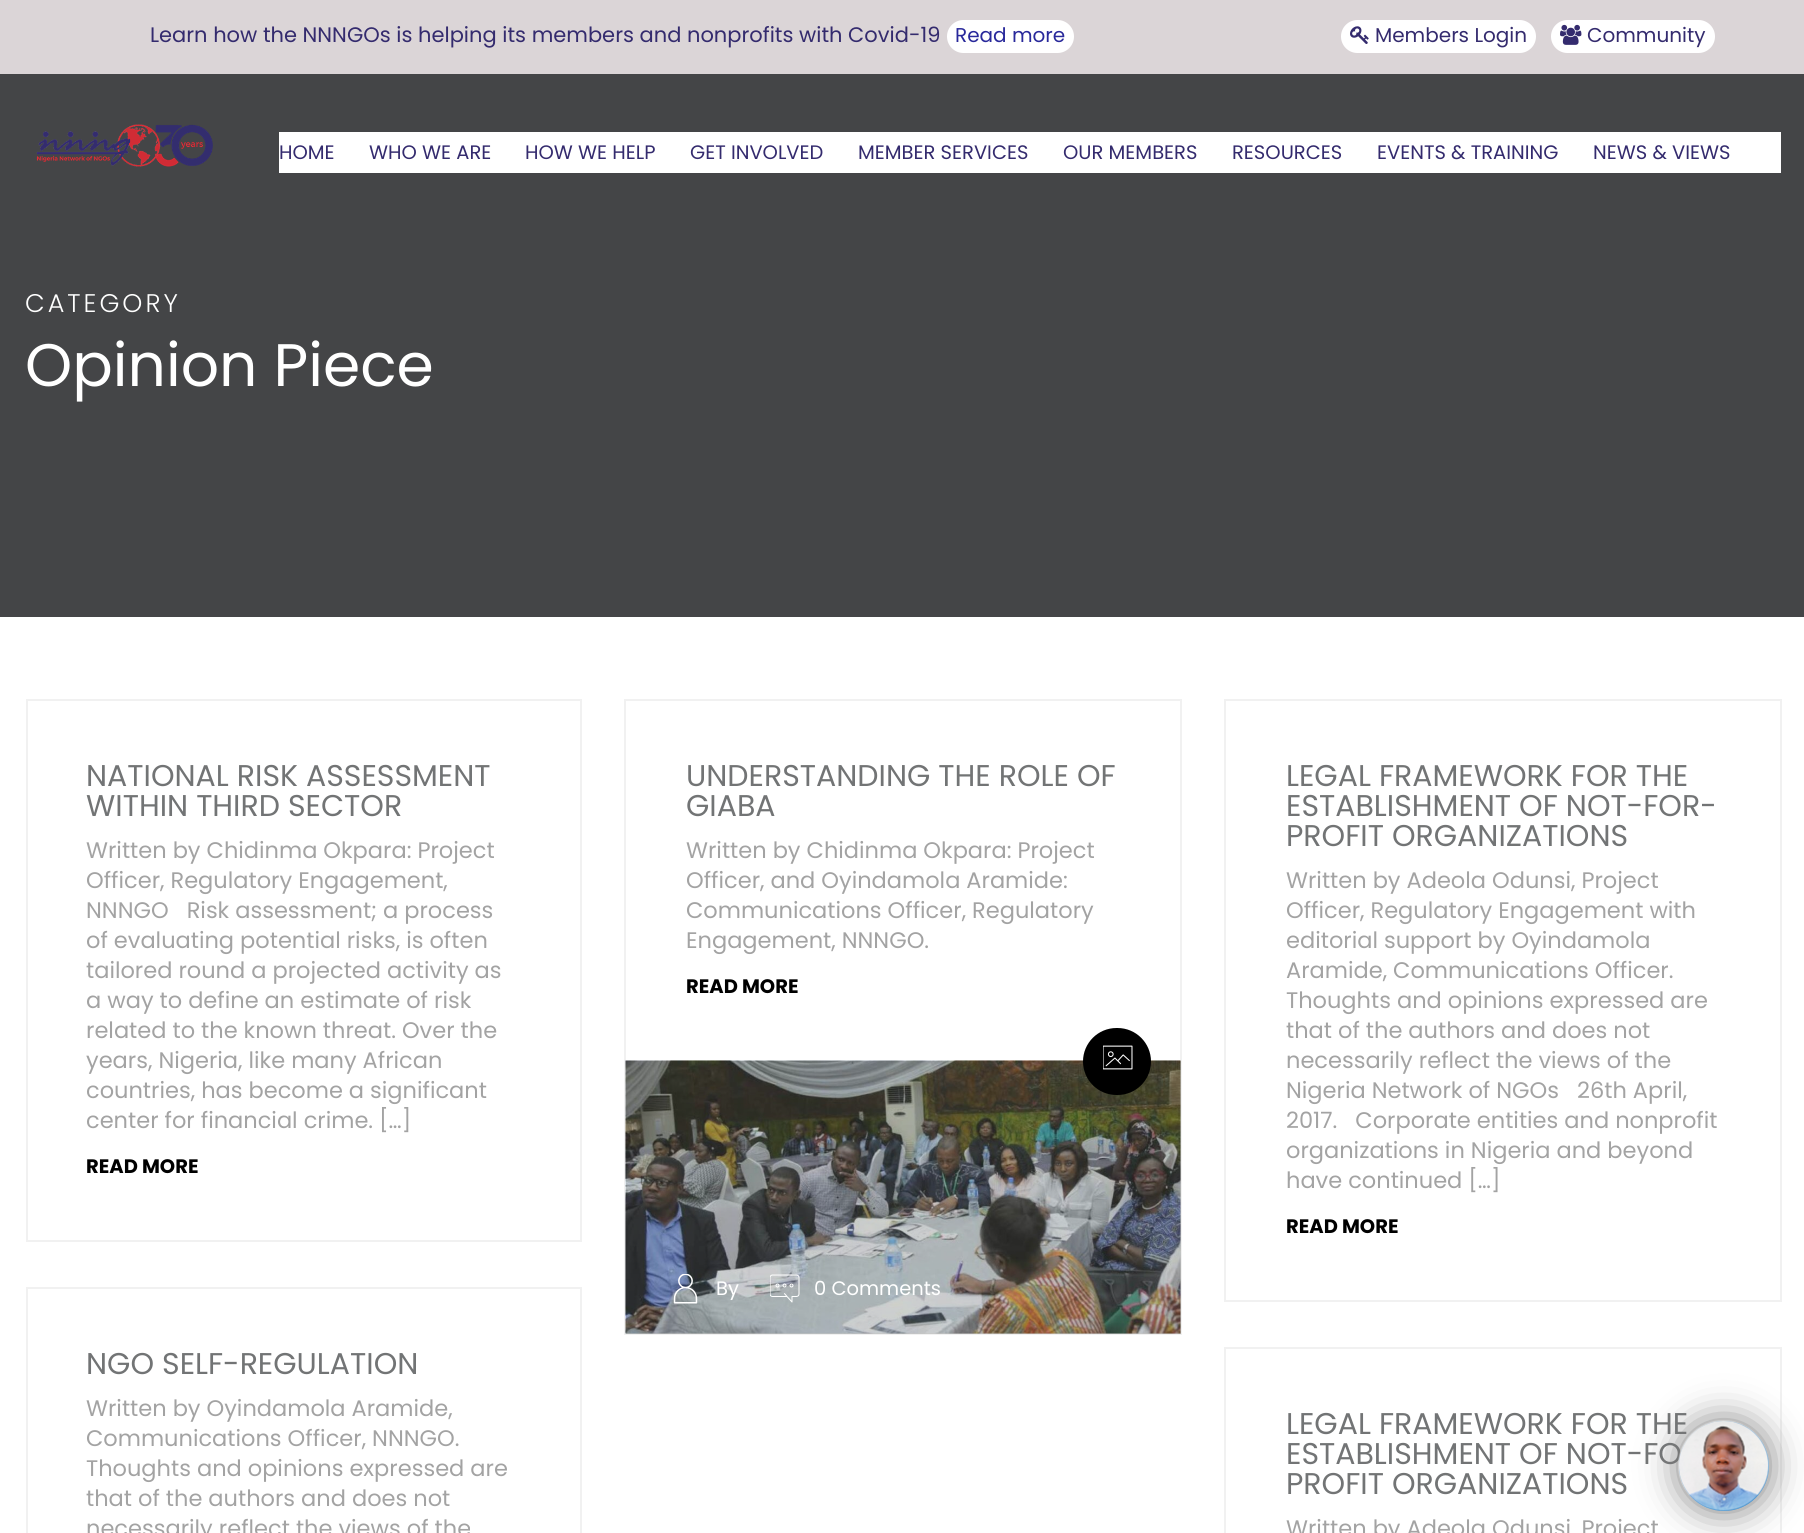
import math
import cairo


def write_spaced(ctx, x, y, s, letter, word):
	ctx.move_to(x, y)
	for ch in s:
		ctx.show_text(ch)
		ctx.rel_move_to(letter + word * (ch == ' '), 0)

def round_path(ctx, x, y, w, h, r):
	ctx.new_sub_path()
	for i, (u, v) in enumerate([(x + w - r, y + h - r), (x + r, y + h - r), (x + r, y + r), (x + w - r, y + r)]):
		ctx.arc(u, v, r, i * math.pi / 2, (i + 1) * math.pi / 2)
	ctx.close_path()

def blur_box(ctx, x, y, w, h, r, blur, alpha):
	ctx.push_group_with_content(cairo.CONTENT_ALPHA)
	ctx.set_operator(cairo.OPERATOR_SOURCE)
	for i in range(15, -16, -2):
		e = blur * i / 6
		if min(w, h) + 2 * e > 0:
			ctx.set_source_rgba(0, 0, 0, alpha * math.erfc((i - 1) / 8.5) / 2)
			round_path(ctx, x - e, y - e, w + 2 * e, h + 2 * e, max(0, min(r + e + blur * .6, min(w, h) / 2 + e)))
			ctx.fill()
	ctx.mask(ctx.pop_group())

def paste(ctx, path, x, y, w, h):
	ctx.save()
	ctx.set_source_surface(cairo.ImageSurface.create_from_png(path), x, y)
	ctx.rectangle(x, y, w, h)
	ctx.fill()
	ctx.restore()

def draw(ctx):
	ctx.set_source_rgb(1, 1, 1)
	ctx.paint()
	ctx.set_source_rgb(0.859, 0.835, 0.843)
	ctx.rectangle(0, 0, 1804, 74)
	ctx.fill()
	ctx.select_font_face('Poppins')
	ctx.set_font_size(21)
	ctx.set_source_rgb(0.204, 0.169, 0.431)
	ctx.move_to(150, 42)
	ctx.show_text('Learn how the NNNGOs is helping its members and nonprofits with Covid-19')
	ctx.set_source_rgb(1, 1, 1)
	round_path(ctx, 947, 20, 127, 33, 16.5)
	ctx.fill()
	ctx.set_font_size(20)
	ctx.set_source_rgb(0.161, 0.161, 0.608)
	ctx.move_to(955, 42)
	ctx.show_text('Read more')
	ctx.set_source_rgb(1, 1, 1)
	round_path(ctx, 1341, 20, 195, 33, 16.5)
	ctx.fill()
	paste(ctx, 'media/1.png', 1350, 26, 19, 18)
	ctx.set_source_rgb(0.204, 0.169, 0.431)
	ctx.move_to(1375, 42)
	ctx.show_text('Members Login')
	ctx.set_source_rgb(1, 1, 1)
	round_path(ctx, 1551, 20, 164, 33, 16.5)
	ctx.fill()
	paste(ctx, 'media/2.png', 1560, 24, 22, 21)
	ctx.set_source_rgb(0.204, 0.169, 0.431)
	ctx.move_to(1587, 42)
	ctx.show_text('Community')
	ctx.set_source_rgb(0.267, 0.271, 0.278)
	ctx.rectangle(0, 74, 1804, 543)
	ctx.fill()
	paste(ctx, 'media/3.png', 36, 124, 177, 43)
	ctx.set_source_rgb(1, 1, 1)
	ctx.rectangle(279, 132, 1502, 41)
	ctx.fill()
	ctx.set_font_size(19.5)
	ctx.set_source_rgb(0.204, 0.169, 0.431)
	for x, y, s in [
		(279, 159, 'HOME'),
		(369, 159, 'WHO WE ARE'),
		(525, 159, 'HOW WE HELP'),
		(690, 159, 'GET INVOLVED'),
		(858, 159, 'MEMBER SERVICES'),
		(1063, 159, 'OUR MEMBERS'),
		(1232, 159, 'RESOURCES'),
		(1377, 159, 'EVENTS & TRAINING'),
		(1593, 159, 'NEWS & VIEWS'),
	]:
		ctx.move_to(x, y)
		ctx.show_text(s)
	ctx.select_font_face('Poppins Light')
	ctx.set_font_size(25.5)
	ctx.set_source_rgb(1, 1, 1)
	write_spaced(ctx, 25, 312, 'CATEGORY', 3, 0)
	ctx.select_font_face('Poppins')
	ctx.set_font_size(60)
	ctx.move_to(25, 386)
	ctx.show_text('Opinion Piece')
	ctx.rectangle(27, 700, 554, 541)
	ctx.set_source_rgb(0.945, 0.945, 0.945)
	ctx.stroke()
	ctx.set_font_size(30)
	ctx.set_source_rgb(0.447, 0.455, 0.459)
	ctx.move_to(86, 786)
	ctx.show_text('NATIONAL RISK ASSESSMENT')
	ctx.move_to(86, 816)
	ctx.show_text('WITHIN THIRD SECTOR')
	ctx.set_font_size(22.5)
	ctx.set_source_rgb(0.639, 0.639, 0.639)
	for x, y, s in [
		(86, 858, 'Written by Chidinma Okpara: Project'),
		(86, 888, 'Officer, Regulatory Engagement,'),
		(86, 918, 'NNNGO   Risk assessment; a process'),
		(86, 948, 'of evaluating potential risks, is often'),
		(86, 978, 'tailored round a projected activity as'),
		(86, 1008, 'a way to define an estimate of risk'),
		(86, 1038, 'related to the known threat. Over the'),
		(86, 1068, 'years, Nigeria, like many African'),
		(86, 1098, 'countries, has become a significant'),
		(86, 1128, 'center for financial crime. […]'),
	]:
		ctx.move_to(x, y)
		ctx.show_text(s)
	ctx.select_font_face('Poppins', cairo.FONT_SLANT_NORMAL, cairo.FONT_WEIGHT_BOLD)
	ctx.set_font_size(19.5)
	ctx.set_source_rgb(0, 0, 0)
	ctx.move_to(86, 1173)
	ctx.show_text('READ MORE')
	ctx.rectangle(625, 700, 556, 634)
	ctx.set_source_rgb(0.945, 0.945, 0.945)
	ctx.stroke()
	ctx.select_font_face('Poppins')
	ctx.set_font_size(30)
	ctx.set_source_rgb(0.447, 0.455, 0.459)
	ctx.move_to(686, 786)
	ctx.show_text('UNDERSTANDING THE ROLE OF')
	ctx.move_to(686, 816)
	ctx.show_text('GIABA')
	ctx.set_font_size(22.5)
	ctx.set_source_rgb(0.639, 0.639, 0.639)
	for x, y, s in [
		(686, 858, 'Written by Chidinma Okpara: Project'),
		(686, 888, 'Officer, and Oyindamola Aramide:'),
		(686, 918, 'Communications Officer, Regulatory'),
		(686, 948, 'Engagement, NNNGO.'),
	]:
		ctx.move_to(x, y)
		ctx.show_text(s)
	ctx.select_font_face('Poppins', cairo.FONT_SLANT_NORMAL, cairo.FONT_WEIGHT_BOLD)
	ctx.set_font_size(19.5)
	ctx.set_source_rgb(0, 0, 0)
	ctx.move_to(686, 993)
	ctx.show_text('READ MORE')
	paste(ctx, 'media/5.png', 625, 1060, 556, 274)
	ctx.set_source_rgba(0.396, 0.392, 0.376, 0.3)
	ctx.rectangle(626, 1061, 555, 273)
	ctx.fill()
	ctx.set_source_rgb(0, 0, 0)
	round_path(ctx, 1083, 1028, 68, 67, 33.5)
	ctx.fill()
	paste(ctx, 'media/4.png', 1103, 1045, 30, 25)
	paste(ctx, 'media/6.png', 673, 1274, 25, 30)
	ctx.select_font_face('Poppins')
	ctx.set_source_rgb(1, 1, 1)
	ctx.move_to(716, 1295)
	ctx.show_text('By')
	paste(ctx, 'media/7.png', 770, 1274, 30, 29)
	ctx.move_to(814, 1295)
	ctx.show_text('0 Comments')
	ctx.rectangle(1225, 700, 556, 601)
	ctx.set_source_rgb(0.945, 0.945, 0.945)
	ctx.stroke()
	ctx.set_font_size(30)
	ctx.set_source_rgb(0.447, 0.455, 0.459)
	for x, y, s in [
		(1286, 786, 'LEGAL FRAMEWORK FOR THE'),
		(1286, 816, 'ESTABLISHMENT OF NOT-FOR-'),
		(1286, 846, 'PROFIT ORGANIZATIONS'),
	]:
		ctx.move_to(x, y)
		ctx.show_text(s)
	ctx.set_font_size(22.5)
	ctx.set_source_rgb(0.639, 0.639, 0.639)
	for x, y, s in [
		(1286, 888, 'Written by Adeola Odunsi, Project'),
		(1286, 918, 'Officer, Regulatory Engagement with'),
		(1286, 948, 'editorial support by Oyindamola'),
		(1286, 978, 'Aramide, Communications Officer.'),
		(1286, 1008, 'Thoughts and opinions expressed are'),
		(1286, 1038, 'that of the authors and does not'),
		(1286, 1068, 'necessarily reflect the views of the'),
		(1286, 1098, 'Nigeria Network of NGOs   26th April,'),
		(1286, 1128, '2017.   Corporate entities and nonprofit'),
		(1286, 1158, 'organizations in Nigeria and beyond'),
		(1286, 1188, 'have continued […]'),
	]:
		ctx.move_to(x, y)
		ctx.show_text(s)
	ctx.select_font_face('Poppins', cairo.FONT_SLANT_NORMAL, cairo.FONT_WEIGHT_BOLD)
	ctx.set_font_size(19.5)
	ctx.set_source_rgb(0, 0, 0)
	ctx.move_to(1286, 1233)
	ctx.show_text('READ MORE')
	ctx.rectangle(27, 1288, 554, 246)
	ctx.set_source_rgb(0.945, 0.945, 0.945)
	ctx.stroke()
	ctx.select_font_face('Poppins')
	ctx.set_font_size(30)
	ctx.set_source_rgb(0.447, 0.455, 0.459)
	ctx.move_to(86, 1374)
	ctx.show_text('NGO SELF-REGULATION')
	ctx.set_font_size(22.5)
	ctx.set_source_rgb(0.639, 0.639, 0.639)
	for x, y, s in [
		(86, 1416, 'Written by Oyindamola Aramide,'),
		(86, 1446, 'Communications Officer, NNNGO.'),
		(86, 1476, 'Thoughts and opinions expressed are'),
		(86, 1506, 'that of the authors and does not'),
		(86, 1536, 'necessarily reflect the views of the'),
	]:
		ctx.move_to(x, y)
		ctx.show_text(s)
	ctx.rectangle(1225, 1348, 556, 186)
	ctx.set_source_rgb(0.945, 0.945, 0.945)
	ctx.stroke()
	ctx.set_font_size(30)
	ctx.set_source_rgb(0.447, 0.455, 0.459)
	for x, y, s in [
		(1286, 1434, 'LEGAL FRAMEWORK FOR THE'),
		(1286, 1464, 'ESTABLISHMENT OF NOT-FO'),
		(1286, 1494, 'PROFIT ORGANIZATIONS'),
	]:
		ctx.move_to(x, y)
		ctx.show_text(s)
	ctx.set_font_size(22.5)
	ctx.set_source_rgb(0.639, 0.639, 0.639)
	ctx.move_to(1286, 1536)
	ctx.show_text('Written by Adeola Odunsi, Project')
	ctx.set_source_rgb(0.478, 0.478, 0.478)
	blur_box(ctx, 1679, 1421, 90, 90, 45, 19, 1)
	ctx.set_source_rgb(0.235, 0.541, 0.788)
	ctx.arc(1724, 1466, 45, 0, 2 * math.pi)
	ctx.fill()
	paste(ctx, 'media/8.png', 1678, 1420, 91, 91)


surface = cairo.ImageSurface(cairo.FORMAT_RGB24, 1804, 1533)
ctx = cairo.Context(surface)
options = cairo.FontOptions()
options.set_hint_metrics(cairo.HINT_METRICS_OFF)
options.set_hint_style(cairo.HINT_STYLE_NONE)
ctx.set_font_options(options)
ctx.set_miter_limit(4)
draw(ctx)
surface.write_to_png('image.png')
